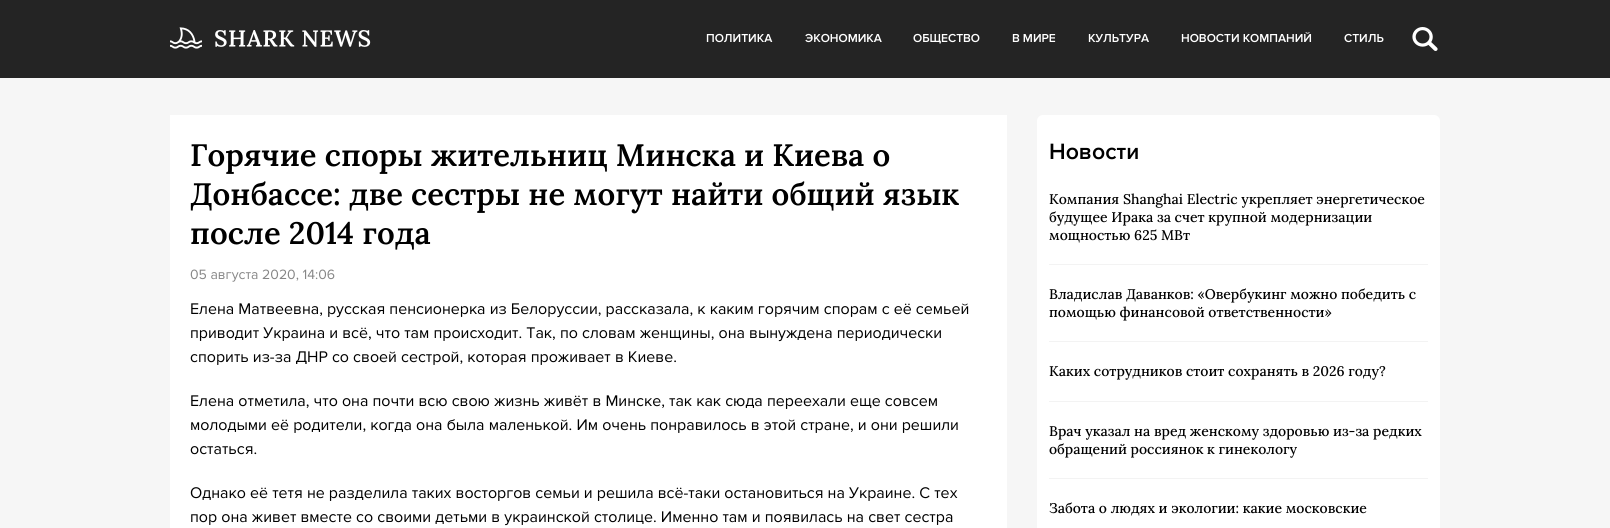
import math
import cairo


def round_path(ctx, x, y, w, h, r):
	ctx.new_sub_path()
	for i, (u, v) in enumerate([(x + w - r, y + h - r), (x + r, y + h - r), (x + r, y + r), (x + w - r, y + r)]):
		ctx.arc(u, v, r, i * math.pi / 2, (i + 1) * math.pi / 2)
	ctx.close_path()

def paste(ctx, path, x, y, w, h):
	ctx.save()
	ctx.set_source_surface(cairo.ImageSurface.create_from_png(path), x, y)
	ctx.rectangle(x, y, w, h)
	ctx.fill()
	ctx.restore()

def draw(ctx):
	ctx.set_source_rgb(0.961, 0.961, 0.961)
	ctx.paint()
	ctx.set_source_rgb(0.141, 0.141, 0.141)
	ctx.rectangle(0, 0, 1610, 78)
	ctx.fill()
	paste(ctx, 'media/1.png', 170, 27, 201, 22)
	ctx.select_font_face('Proxima Nova SemiBold')
	ctx.set_font_size(12)
	ctx.set_source_rgb(1, 1, 1)
	for x, y, s in [
		(706, 42, 'ПОЛИТИКА'),
		(805, 42, 'ЭКОНОМИКА'),
		(913, 42, 'ОБЩЕСТВО'),
		(1012, 42, 'В МИРЕ'),
		(1088, 42, 'КУЛЬТУРА'),
		(1181, 42, 'НОВОСТИ КОМПАНИЙ'),
		(1344, 42, 'СТИЛЬ'),
	]:
		ctx.move_to(x, y)
		ctx.show_text(s)
	paste(ctx, 'media/2.png', 1412, 27, 26, 24)
	ctx.rectangle(170, 115, 837, 413)
	ctx.fill()
	ctx.select_font_face('Lora SemiBold')
	ctx.set_font_size(31)
	ctx.set_source_rgb(0, 0, 0)
	for x, y, s in [
		(190, 166, 'Горячие споры жительниц Минска и Киева о'),
		(190, 205, 'Донбассе: две сестры не могут найти общий язык'),
		(190, 244, 'после 2014 года'),
	]:
		ctx.move_to(x, y)
		ctx.show_text(s)
	ctx.select_font_face('Proxima Nova')
	ctx.set_font_size(14)
	ctx.set_source_rgb(0.525, 0.525, 0.525)
	ctx.move_to(190, 279)
	ctx.show_text('05 августа 2020, 14:06')
	ctx.set_font_size(16)
	ctx.set_source_rgb(0, 0, 0)
	for x, y, s in [
		(190, 314, 'Елена Матвеевна, русская пенсионерка из Белоруссии, рассказала, к каким горячим спорам с её семьей'),
		(190, 338, 'приводит Украина и всё, что там происходит. Так, по словам женщины, она вынуждена периодически'),
		(190, 362, 'спорить из-за ДНР со своей сестрой, которая проживает в Киеве.'),
		(190, 406, 'Елена отметила, что она почти всю свою жизнь живёт в Минске, так как сюда переехали еще совсем'),
		(190, 430, 'молодыми её родители, когда она была маленькой. Им очень понравилось в этой стране, и они решили'),
		(190, 454, 'остаться.'),
		(190, 498, 'Однако её тетя не разделила таких восторгов семьи и решила всё-таки остановиться на Украине. С тех'),
		(190, 522, 'пор она живет вместе со своими детьми в украинской столице. Именно там и появилась на свет сестра'),
	]:
		ctx.move_to(x, y)
		ctx.show_text(s)
	ctx.set_source_rgb(1, 1, 1)
	round_path(ctx, 1037, 115, 403, 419, 6)
	ctx.fill()
	ctx.select_font_face('Proxima Nova SemiBold')
	ctx.set_font_size(23)
	ctx.set_source_rgb(0, 0, 0)
	ctx.move_to(1049, 159)
	ctx.show_text('Новости')
	ctx.set_source_rgb(0.953, 0.953, 0.953)
	ctx.rectangle(1049, 264, 379, 1)
	ctx.fill()
	ctx.select_font_face('Lora Medium')
	ctx.set_font_size(14)
	ctx.set_source_rgb(0, 0, 0)
	for x, y, s in [
		(1049, 204, 'Компания Shanghai Electric укрепляет энергетическое'),
		(1049, 222, 'будущее Ирака за счет крупной модернизации'),
		(1049, 240, 'мощностью 625 МВт'),
	]:
		ctx.move_to(x, y)
		ctx.show_text(s)
	ctx.set_source_rgb(0.953, 0.953, 0.953)
	ctx.rectangle(1049, 341, 379, 1)
	ctx.fill()
	ctx.set_source_rgb(0, 0, 0)
	ctx.move_to(1049, 299)
	ctx.show_text('Владислав Даванков: «Овербукинг можно победить с')
	ctx.move_to(1049, 317)
	ctx.show_text('помощью финансовой ответственности»')
	ctx.set_source_rgb(0.953, 0.953, 0.953)
	ctx.rectangle(1049, 401, 379, 1)
	ctx.fill()
	ctx.set_source_rgb(0, 0, 0)
	ctx.move_to(1049, 376)
	ctx.show_text('Каких сотрудников стоит сохранять в 2026 году?')
	ctx.set_source_rgb(0.953, 0.953, 0.953)
	ctx.rectangle(1049, 478, 379, 1)
	ctx.fill()
	ctx.set_source_rgb(0, 0, 0)
	for x, y, s in [
		(1049, 436, 'Врач указал на вред женскому здоровью из-за редких'),
		(1049, 454, 'обращений россиянок к гинекологу'),
		(1049, 513, 'Забота о людях и экологии: какие московские'),
	]:
		ctx.move_to(x, y)
		ctx.show_text(s)


surface = cairo.ImageSurface(cairo.FORMAT_RGB24, 1610, 528)
ctx = cairo.Context(surface)
options = cairo.FontOptions()
options.set_hint_metrics(cairo.HINT_METRICS_OFF)
options.set_hint_style(cairo.HINT_STYLE_NONE)
ctx.set_font_options(options)
ctx.set_miter_limit(4)
draw(ctx)
surface.write_to_png('image.png')
